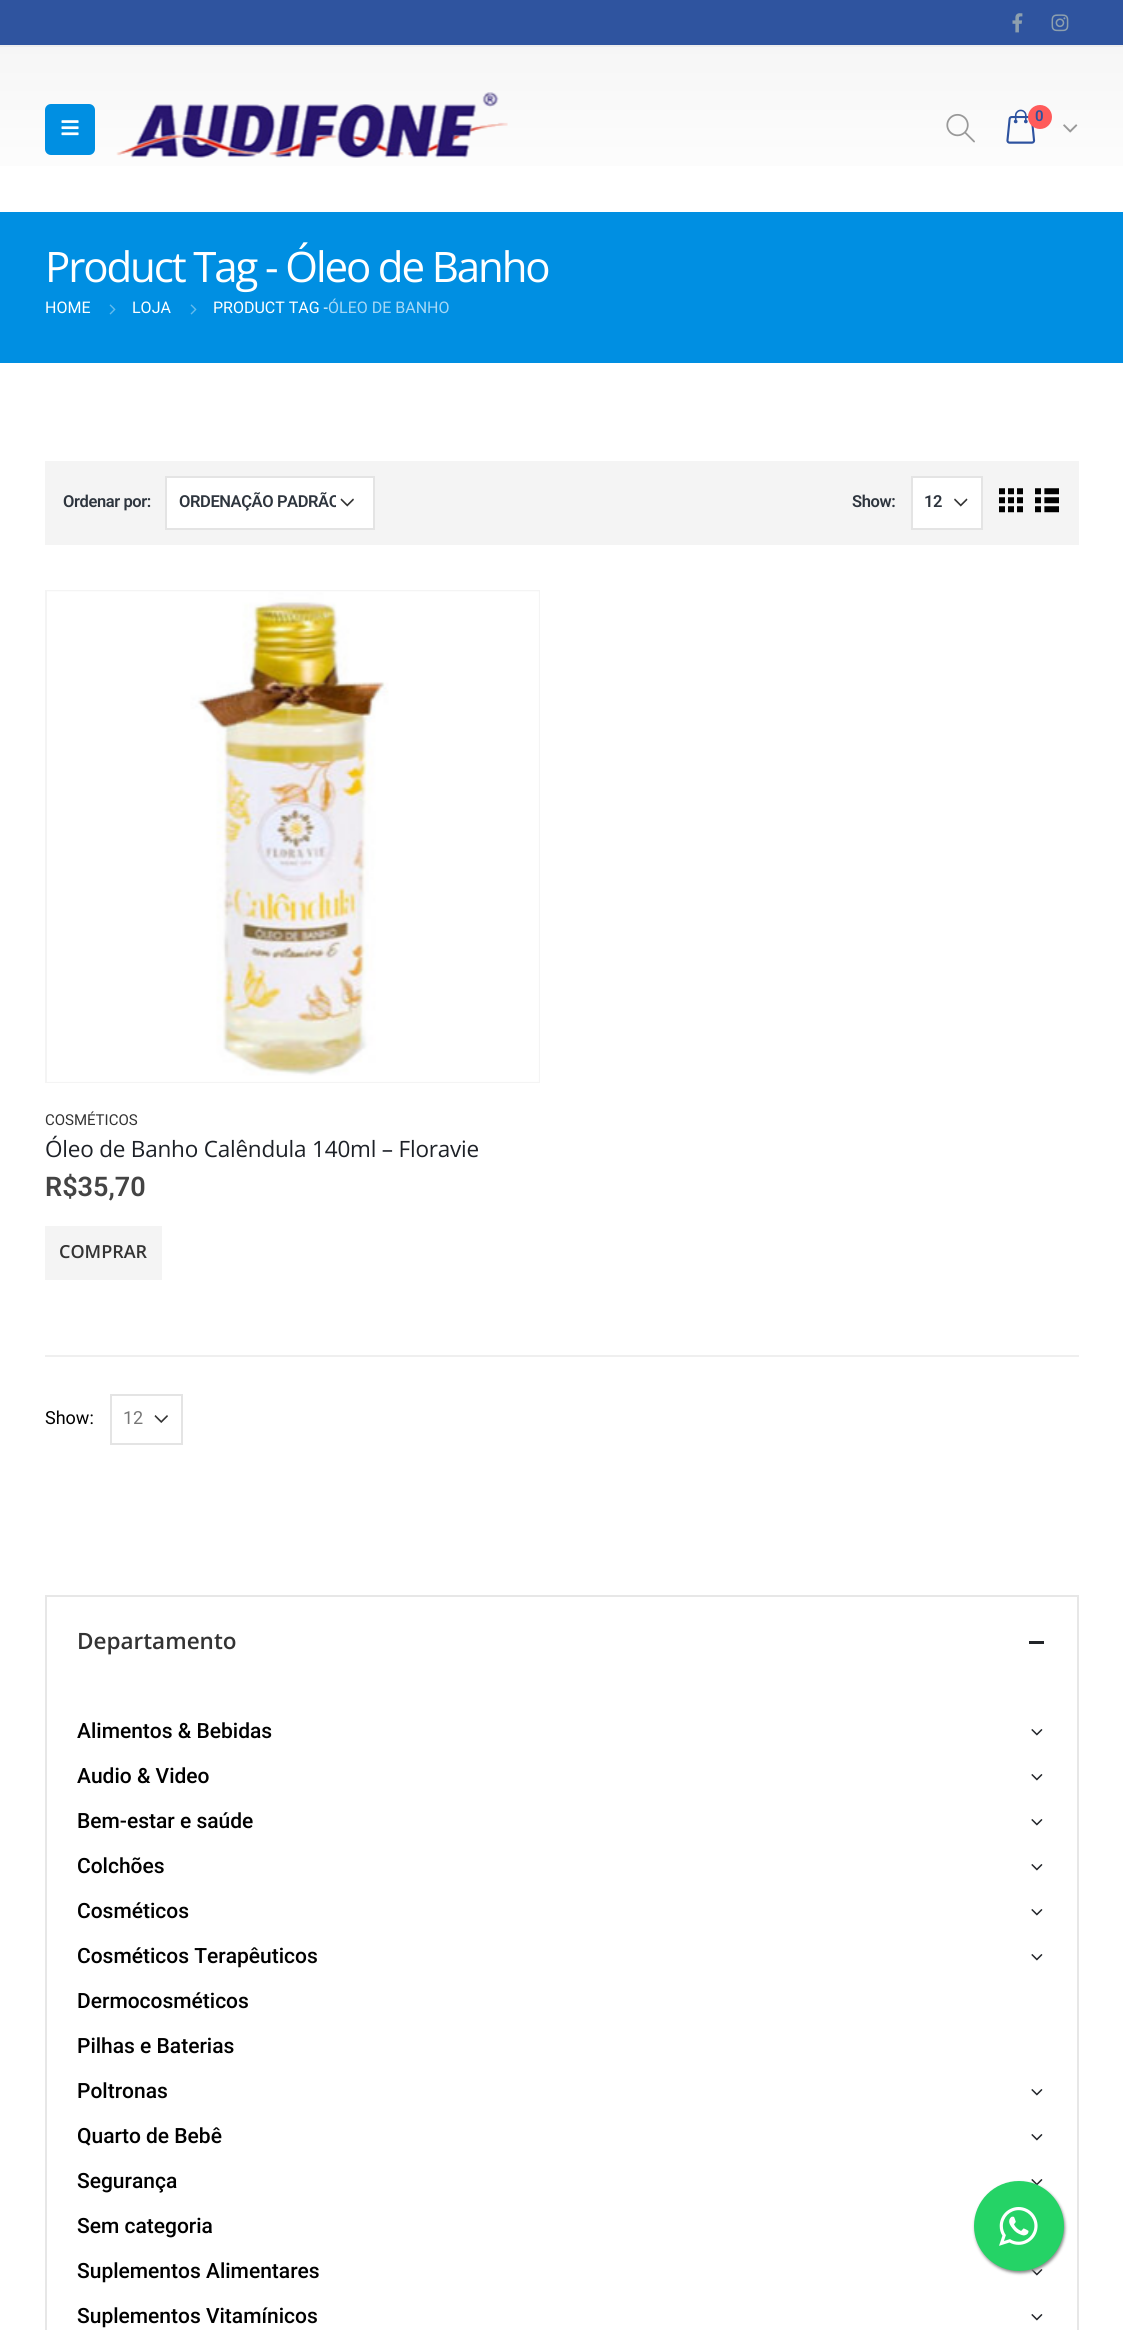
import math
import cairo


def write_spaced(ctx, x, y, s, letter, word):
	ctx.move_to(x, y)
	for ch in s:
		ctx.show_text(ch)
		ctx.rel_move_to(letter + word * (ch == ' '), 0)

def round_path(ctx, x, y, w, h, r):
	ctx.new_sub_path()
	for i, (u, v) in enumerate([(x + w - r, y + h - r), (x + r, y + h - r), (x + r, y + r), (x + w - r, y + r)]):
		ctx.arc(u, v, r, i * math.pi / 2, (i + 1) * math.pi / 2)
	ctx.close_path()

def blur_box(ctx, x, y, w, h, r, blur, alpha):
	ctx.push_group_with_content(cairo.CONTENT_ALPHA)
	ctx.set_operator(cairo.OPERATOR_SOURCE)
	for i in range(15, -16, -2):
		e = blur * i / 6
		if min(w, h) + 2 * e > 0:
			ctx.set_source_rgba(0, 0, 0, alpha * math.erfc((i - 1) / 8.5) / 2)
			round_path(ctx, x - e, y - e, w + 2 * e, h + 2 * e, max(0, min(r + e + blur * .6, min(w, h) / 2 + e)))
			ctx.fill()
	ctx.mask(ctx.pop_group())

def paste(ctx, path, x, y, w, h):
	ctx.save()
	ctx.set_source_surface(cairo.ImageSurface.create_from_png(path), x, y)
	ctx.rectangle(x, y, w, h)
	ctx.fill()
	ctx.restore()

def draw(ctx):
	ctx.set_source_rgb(1, 1, 1)
	ctx.paint()
	ctx.set_source_rgb(0.184, 0.329, 0.624)
	ctx.rectangle(0, 0, 1123, 45)
	ctx.fill()
	ctx.set_source_rgb(0.929, 0.929, 0.929)
	ctx.rectangle(0, 45, 1123, 2)
	ctx.fill()
	paste(ctx, 'media/1.png', 1012, 13, 11, 20)
	paste(ctx, 'media/2.png', 1051, 14, 18, 18)
	gradient = cairo.LinearGradient(562, 46, 562, 212)
	gradient.add_color_stop_rgba(0, 0.965, 0.965, 0.965, 1)
	gradient.add_color_stop_rgba(1, 1, 1, 1, 1)
	ctx.set_source(gradient)
	ctx.rectangle(0, 47, 1123, 119)
	ctx.fill()
	ctx.set_source_rgb(0, 0.561, 0.886)
	round_path(ctx, 45, 104, 50, 51, 6)
	ctx.fill()
	paste(ctx, 'media/3.png', 61, 120, 18, 16)
	paste(ctx, 'media/4.png', 116, 92, 392, 66)
	paste(ctx, 'media/5.png', 946, 113, 29, 30)
	paste(ctx, 'media/6.png', 1006, 109, 30, 35)
	ctx.set_source_rgb(1, 0.357, 0.357)
	ctx.arc(1040, 117, 12, 0, 2 * math.pi)
	ctx.fill()
	ctx.select_font_face('Roboto SemiBold')
	ctx.set_font_size(15)
	ctx.set_source_rgb(0.176, 0.322, 0.624)
	ctx.move_to(1035, 121)
	ctx.show_text('0')
	paste(ctx, 'media/7.png', 1063, 124, 15, 9)
	ctx.set_source_rgb(0, 0.561, 0.886)
	ctx.rectangle(0, 212, 1123, 151)
	ctx.fill()
	ctx.select_font_face('Open Sans')
	ctx.set_font_size(42)
	ctx.set_source_rgb(1, 1, 1)
	write_spaced(ctx, 45, 282, 'Product Tag - Óleo de Banho', -2.1, 0)
	ctx.select_font_face('Roboto')
	ctx.set_font_size(16)
	ctx.move_to(45, 313)
	ctx.show_text('HOME')
	paste(ctx, 'media/8.png', 109, 304, 7, 11)
	ctx.move_to(132, 313)
	ctx.show_text('LOJA')
	paste(ctx, 'media/8.png', 190, 304, 7, 11)
	ctx.move_to(213, 313)
	ctx.show_text('PRODUCT TAG -')
	ctx.set_source_rgb(0.651, 0.847, 0.961)
	ctx.move_to(328, 313)
	ctx.show_text('ÓLEO DE BANHO')
	ctx.set_source_rgb(0.957, 0.957, 0.957)
	ctx.rectangle(45, 461, 1034, 84)
	ctx.fill()
	ctx.select_font_face('Roboto SemiBold')
	ctx.set_font_size(16.5)
	ctx.set_source_rgb(0.18, 0.208, 0.243)
	write_spaced(ctx, 63, 507, 'Ordenar por:', -0.4, 0)
	ctx.set_source_rgb(1, 1, 1)
	ctx.rectangle(167, 478, 206, 50)
	ctx.fill()
	paste(ctx, 'media/9.png', 340, 498, 14, 9)
	ctx.rectangle(166, 477, 208, 52)
	ctx.set_source_rgb(0.894, 0.894, 0.894)
	ctx.stroke()
	ctx.save()
	ctx.rectangle(179, 491, 157, 24)
	ctx.clip()
	ctx.set_source_rgb(0.18, 0.208, 0.243)
	write_spaced(ctx, 179, 507, 'ORDENAÇÃO PADRÃO', -0.4, 0)
	ctx.restore()
	ctx.set_source_rgb(0.18, 0.208, 0.243)
	write_spaced(ctx, 852, 507, 'Show:', -0.4, 0)
	ctx.set_source_rgb(1, 1, 1)
	ctx.rectangle(913, 478, 68, 50)
	ctx.fill()
	paste(ctx, 'media/10.png', 954, 498, 14, 9)
	ctx.rectangle(912, 477, 70, 52)
	ctx.set_source_rgb(0.894, 0.894, 0.894)
	ctx.stroke()
	ctx.set_source_rgb(0.18, 0.208, 0.243)
	write_spaced(ctx, 924, 507, '12', -0.4, 0)
	paste(ctx, 'media/11.png', 999, 488, 24, 25)
	paste(ctx, 'media/12.png', 1035, 488, 24, 25)
	ctx.rectangle(46, 591, 493, 491)
	ctx.set_source_rgb(0.957, 0.957, 0.957)
	ctx.stroke()
	paste(ctx, 'media/13.png', 47, 591, 492, 491)
	ctx.select_font_face('Roboto')
	ctx.set_font_size(15)
	ctx.set_source_rgb(0.2, 0.2, 0.2)
	ctx.move_to(45, 1125)
	ctx.show_text('COSMÉTICOS')
	ctx.select_font_face('Open Sans')
	ctx.set_font_size(22.5)
	ctx.set_source_rgb(0.114, 0.129, 0.153)
	write_spaced(ctx, 45, 1157, 'Óleo de Banho Calêndula 140ml – Floravie', -0.2, 0)
	ctx.select_font_face('Roboto SemiBold')
	ctx.set_font_size(27)
	ctx.set_source_rgb(0.267, 0.267, 0.267)
	ctx.move_to(45, 1196)
	ctx.show_text('R$35,70')
	ctx.set_source_rgb(0.957, 0.957, 0.957)
	ctx.rectangle(45, 1226, 117, 54)
	ctx.fill()
	ctx.select_font_face('Open Sans SemiBold')
	ctx.set_font_size(18)
	ctx.set_source_rgb(0.2, 0.2, 0.2)
	ctx.move_to(59, 1258)
	ctx.show_text('COMPRAR')
	ctx.set_source_rgb(0.937, 0.937, 0.937)
	ctx.rectangle(45, 1355, 1034, 2)
	ctx.fill()
	ctx.select_font_face('Roboto')
	ctx.set_source_rgb(0, 0, 0)
	ctx.move_to(45, 1424)
	ctx.show_text('Show:')
	paste(ctx, 'media/14.png', 154, 1415, 14, 8)
	ctx.rectangle(111, 1395, 71, 49)
	ctx.set_source_rgb(0.894, 0.894, 0.894)
	ctx.stroke()
	ctx.set_source_rgb(0.467, 0.467, 0.467)
	ctx.move_to(123, 1424)
	ctx.show_text('12')
	ctx.rectangle(46, 1596, 1032, 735)
	ctx.set_source_rgb(0.906, 0.906, 0.906)
	ctx.stroke()
	ctx.select_font_face('Open Sans SemiBold')
	ctx.set_font_size(22.5)
	ctx.set_source_rgb(0.2, 0.2, 0.2)
	ctx.move_to(77, 1649)
	ctx.show_text('Departamento')
	ctx.set_source_rgb(0.133, 0.145, 0.161)
	ctx.rectangle(1029, 1641, 15, 3)
	ctx.fill()
	ctx.select_font_face('Roboto Medium')
	ctx.set_font_size(21)
	ctx.set_source_rgb(0, 0, 0)
	ctx.move_to(77, 1738)
	ctx.show_text('Alimentos & Bebidas')
	paste(ctx, 'media/15.png', 1031, 1729, 12, 7)
	ctx.move_to(77, 1783)
	ctx.show_text('Audio & Video')
	paste(ctx, 'media/15.png', 1031, 1774, 12, 7)
	ctx.move_to(77, 1828)
	ctx.show_text('Bem-estar e saúde')
	paste(ctx, 'media/15.png', 1031, 1819, 12, 7)
	ctx.move_to(77, 1873)
	ctx.show_text('Colchões')
	paste(ctx, 'media/15.png', 1031, 1864, 12, 7)
	ctx.move_to(77, 1918)
	ctx.show_text('Cosméticos')
	paste(ctx, 'media/15.png', 1031, 1909, 12, 7)
	ctx.move_to(77, 1963)
	ctx.show_text('Cosméticos Terapêuticos')
	paste(ctx, 'media/15.png', 1031, 1954, 12, 7)
	for x, y, s in [
		(77, 2008, 'Dermocosméticos'),
		(77, 2053, 'Pilhas e Baterias'),
		(77, 2098, 'Poltronas'),
	]:
		ctx.move_to(x, y)
		ctx.show_text(s)
	paste(ctx, 'media/15.png', 1031, 2089, 12, 7)
	ctx.move_to(77, 2143)
	ctx.show_text('Quarto de Bebê')
	paste(ctx, 'media/15.png', 1031, 2134, 12, 7)
	ctx.move_to(77, 2188)
	ctx.show_text('Segurança')
	paste(ctx, 'media/15.png', 1031, 2179, 12, 7)
	ctx.move_to(77, 2233)
	ctx.show_text('Sem categoria')
	ctx.move_to(77, 2278)
	ctx.show_text('Suplementos Alimentares')
	paste(ctx, 'media/15.png', 1031, 2269, 12, 7)
	ctx.move_to(77, 2323)
	ctx.show_text('Suplementos Vitamínicos')
	paste(ctx, 'media/15.png', 1031, 2314, 12, 7)
	ctx.set_source_rgb(0.533, 0.533, 0.533)
	blur_box(ctx, 975, 2183, 90, 90, 45, 1.5, 1)
	ctx.set_source_rgb(0.145, 0.827, 0.4)
	ctx.arc(1019, 2226, 45, 0, 2 * math.pi)
	ctx.fill()
	paste(ctx, 'media/16.png', 999, 2207, 39, 39)


surface = cairo.ImageSurface(cairo.FORMAT_RGB24, 1123, 2330)
ctx = cairo.Context(surface)
options = cairo.FontOptions()
options.set_hint_metrics(cairo.HINT_METRICS_OFF)
options.set_hint_style(cairo.HINT_STYLE_NONE)
ctx.set_font_options(options)
ctx.set_miter_limit(4)
draw(ctx)
surface.write_to_png('image.png')
